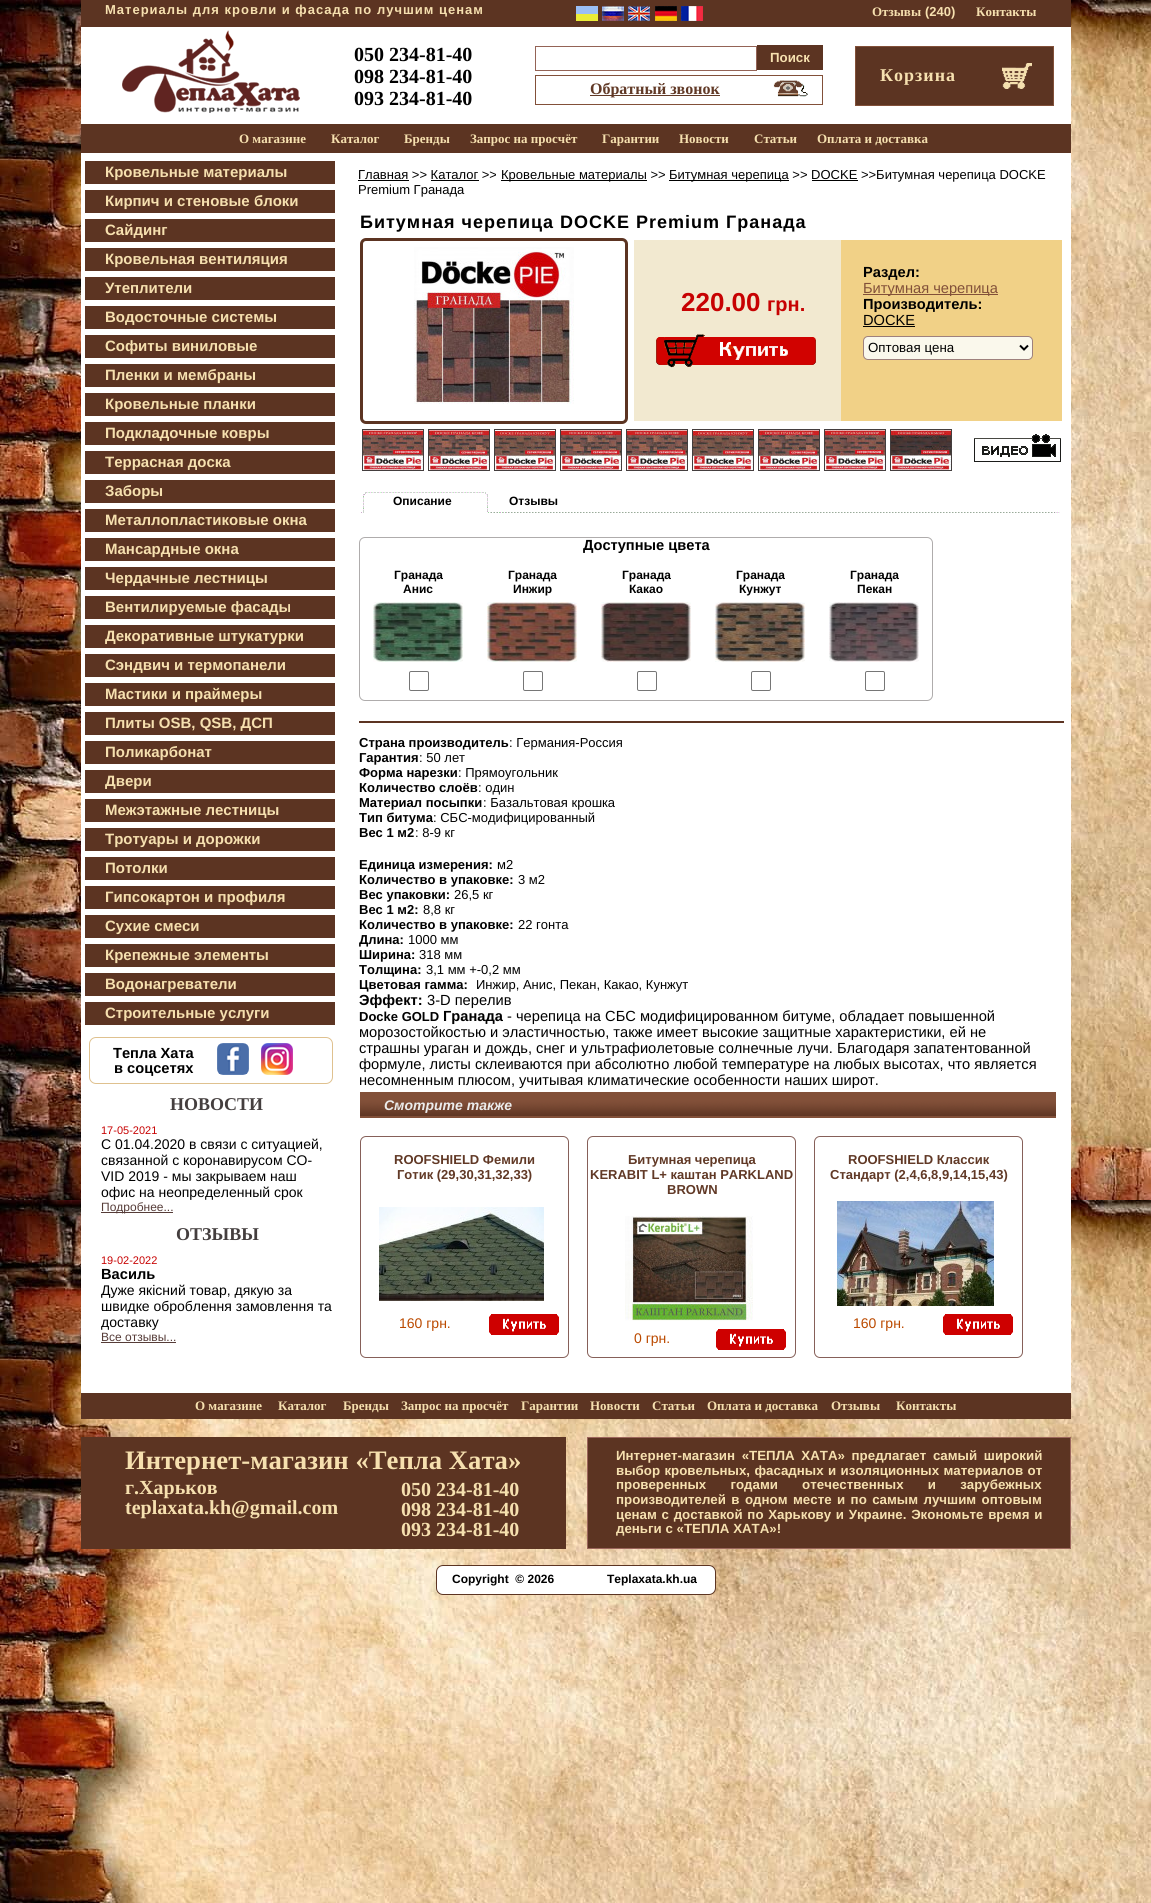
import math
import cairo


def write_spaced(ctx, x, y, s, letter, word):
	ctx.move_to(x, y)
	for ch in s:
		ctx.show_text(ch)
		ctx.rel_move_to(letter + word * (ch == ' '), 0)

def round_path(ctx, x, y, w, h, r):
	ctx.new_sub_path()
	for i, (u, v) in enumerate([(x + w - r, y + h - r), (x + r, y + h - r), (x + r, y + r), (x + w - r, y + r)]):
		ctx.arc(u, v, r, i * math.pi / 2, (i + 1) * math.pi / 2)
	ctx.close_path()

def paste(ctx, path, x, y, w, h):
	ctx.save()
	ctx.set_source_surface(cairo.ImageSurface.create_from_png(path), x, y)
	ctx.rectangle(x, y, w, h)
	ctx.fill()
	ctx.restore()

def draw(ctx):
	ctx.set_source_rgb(1, 1, 1)
	ctx.paint()
	paste(ctx, 'media/1.png', 0, 0, 1151, 1903)
	ctx.set_source_rgb(0.361, 0.204, 0.133)
	ctx.rectangle(81, 0, 990, 27)
	ctx.fill()
	ctx.select_font_face('Liberation Sans', cairo.FONT_SLANT_NORMAL, cairo.FONT_WEIGHT_BOLD)
	ctx.set_font_size(13)
	ctx.set_source_rgb(0.961, 0.878, 0.686)
	write_spaced(ctx, 105, 14, 'Материалы для кровли и фасада по лучшим ценам', 1, 0)
	ctx.select_font_face('Liberation Serif', cairo.FONT_SLANT_NORMAL, cairo.FONT_WEIGHT_BOLD)
	ctx.move_to(872, 16)
	ctx.show_text('Отзывы')
	ctx.select_font_face('Liberation Sans', cairo.FONT_SLANT_NORMAL, cairo.FONT_WEIGHT_BOLD)
	ctx.move_to(925, 16)
	ctx.show_text('(240)')
	ctx.select_font_face('Liberation Serif', cairo.FONT_SLANT_NORMAL, cairo.FONT_WEIGHT_BOLD)
	ctx.move_to(976, 16)
	ctx.show_text('Контакты')
	ctx.set_source_rgb(1, 1, 1)
	ctx.rectangle(81, 27, 990, 97)
	ctx.fill()
	paste(ctx, 'media/2.png', 122, 30, 178, 83)
	ctx.set_font_size(20)
	ctx.set_source_rgb(0, 0, 0)
	for x, y, s in [
		(354, 61, '050 234-81-40'),
		(354, 83, '098 234-81-40'),
		(354, 105, '093 234-81-40'),
	]:
		ctx.move_to(x, y)
		ctx.show_text(s)
	ctx.rectangle(535.5, 46.5, 221, 24)
	ctx.set_source_rgb(0.58, 0.388, 0.337)
	ctx.set_line_width(1)
	ctx.stroke()
	ctx.set_source_rgb(0.361, 0.204, 0.133)
	ctx.rectangle(757, 45, 66, 25)
	ctx.fill()
	ctx.select_font_face('Liberation Sans', cairo.FONT_SLANT_NORMAL, cairo.FONT_WEIGHT_BOLD)
	ctx.set_font_size(13.3)
	ctx.set_source_rgb(0.961, 0.878, 0.686)
	ctx.move_to(770, 62)
	ctx.show_text('Поиск')
	ctx.rectangle(535.5, 75.5, 287, 29)
	ctx.set_source_rgb(0.51, 0.314, 0.224)
	ctx.stroke()
	ctx.set_source_rgb(0.38, 0.224, 0.149)
	ctx.rectangle(590, 95, 130, 1)
	ctx.fill()
	ctx.select_font_face('Liberation Serif', cairo.FONT_SLANT_NORMAL, cairo.FONT_WEIGHT_BOLD)
	ctx.set_font_size(16)
	ctx.move_to(590, 94)
	ctx.show_text('Обратный звонок')
	paste(ctx, 'media/3.png', 773, 80, 35, 17)
	ctx.set_source_rgb(0.361, 0.204, 0.133)
	ctx.rectangle(855.5, 46.5, 198, 59)
	ctx.fill_preserve()
	ctx.set_source_rgb(0.51, 0.314, 0.224)
	ctx.stroke()
	ctx.set_font_size(18)
	ctx.set_source_rgb(0.961, 0.878, 0.686)
	write_spaced(ctx, 880, 81, 'Корзина', 1, 0)
	paste(ctx, 'media/4.png', 1002, 63, 30, 26)
	ctx.set_source_rgb(0.361, 0.204, 0.133)
	ctx.rectangle(81, 124, 990, 29)
	ctx.fill()
	ctx.set_font_size(13)
	ctx.set_source_rgb(0.961, 0.878, 0.686)
	for x, y, s in [
		(239, 143, 'О магазине'),
		(331, 143, 'Каталог'),
		(404, 143, 'Бренды'),
		(470, 143, 'Запрос на просчёт'),
		(602, 143, 'Гарантии'),
		(679, 143, 'Новости'),
		(754, 143, 'Статьи'),
		(817, 143, 'Оплата и доставка'),
	]:
		ctx.move_to(x, y)
		ctx.show_text(s)
	ctx.set_source_rgb(1, 1, 1)
	ctx.rectangle(81, 153, 990, 1240)
	ctx.fill()
	ctx.set_source_rgb(0.361, 0.204, 0.133)
	ctx.rectangle(85, 161, 250, 23)
	ctx.fill()
	ctx.select_font_face('Liberation Sans', cairo.FONT_SLANT_NORMAL, cairo.FONT_WEIGHT_BOLD)
	ctx.set_font_size(15)
	ctx.set_source_rgb(0.961, 0.878, 0.686)
	ctx.move_to(105, 177)
	ctx.show_text('Кровельные материалы')
	ctx.set_source_rgb(0.361, 0.204, 0.133)
	ctx.rectangle(85, 190, 250, 23)
	ctx.fill()
	ctx.set_source_rgb(0.961, 0.878, 0.686)
	ctx.move_to(105, 206)
	ctx.show_text('Кирпич и стеновые блоки')
	ctx.set_source_rgb(0.361, 0.204, 0.133)
	ctx.rectangle(85, 219, 250, 23)
	ctx.fill()
	ctx.set_source_rgb(0.961, 0.878, 0.686)
	ctx.move_to(105, 235)
	ctx.show_text('Сайдинг')
	ctx.set_source_rgb(0.361, 0.204, 0.133)
	ctx.rectangle(85, 248, 250, 23)
	ctx.fill()
	ctx.set_source_rgb(0.961, 0.878, 0.686)
	ctx.move_to(105, 264)
	ctx.show_text('Кровельная вентиляция')
	ctx.set_source_rgb(0.361, 0.204, 0.133)
	ctx.rectangle(85, 277, 250, 23)
	ctx.fill()
	ctx.set_source_rgb(0.961, 0.878, 0.686)
	ctx.move_to(105, 293)
	ctx.show_text('Утеплители')
	ctx.set_source_rgb(0.361, 0.204, 0.133)
	ctx.rectangle(85, 306, 250, 23)
	ctx.fill()
	ctx.set_source_rgb(0.961, 0.878, 0.686)
	ctx.move_to(105, 322)
	ctx.show_text('Водосточные системы')
	ctx.set_source_rgb(0.361, 0.204, 0.133)
	ctx.rectangle(85, 335, 250, 23)
	ctx.fill()
	ctx.set_source_rgb(0.961, 0.878, 0.686)
	ctx.move_to(105, 351)
	ctx.show_text('Софиты виниловые')
	ctx.set_source_rgb(0.361, 0.204, 0.133)
	ctx.rectangle(85, 364, 250, 23)
	ctx.fill()
	ctx.set_source_rgb(0.961, 0.878, 0.686)
	ctx.move_to(105, 380)
	ctx.show_text('Пленки и мембраны')
	ctx.set_source_rgb(0.361, 0.204, 0.133)
	ctx.rectangle(85, 393, 250, 23)
	ctx.fill()
	ctx.set_source_rgb(0.961, 0.878, 0.686)
	ctx.move_to(105, 409)
	ctx.show_text('Кровельные планки')
	ctx.set_source_rgb(0.361, 0.204, 0.133)
	ctx.rectangle(85, 422, 250, 23)
	ctx.fill()
	ctx.set_source_rgb(0.961, 0.878, 0.686)
	ctx.move_to(105, 438)
	ctx.show_text('Подкладочные ковры')
	ctx.set_source_rgb(0.361, 0.204, 0.133)
	ctx.rectangle(85, 451, 250, 23)
	ctx.fill()
	ctx.set_source_rgb(0.961, 0.878, 0.686)
	ctx.move_to(105, 467)
	ctx.show_text('Террасная доска')
	ctx.set_source_rgb(0.361, 0.204, 0.133)
	ctx.rectangle(85, 480, 250, 23)
	ctx.fill()
	ctx.set_source_rgb(0.961, 0.878, 0.686)
	ctx.move_to(105, 496)
	ctx.show_text('Заборы')
	ctx.set_source_rgb(0.361, 0.204, 0.133)
	ctx.rectangle(85, 509, 250, 23)
	ctx.fill()
	ctx.set_source_rgb(0.961, 0.878, 0.686)
	ctx.move_to(105, 525)
	ctx.show_text('Металлопластиковые окна')
	ctx.set_source_rgb(0.361, 0.204, 0.133)
	ctx.rectangle(85, 538, 250, 23)
	ctx.fill()
	ctx.set_source_rgb(0.961, 0.878, 0.686)
	ctx.move_to(105, 554)
	ctx.show_text('Мансардные окна')
	ctx.set_source_rgb(0.361, 0.204, 0.133)
	ctx.rectangle(85, 567, 250, 23)
	ctx.fill()
	ctx.set_source_rgb(0.961, 0.878, 0.686)
	ctx.move_to(105, 583)
	ctx.show_text('Чердачные лестницы')
	ctx.set_source_rgb(0.361, 0.204, 0.133)
	ctx.rectangle(85, 596, 250, 23)
	ctx.fill()
	ctx.set_source_rgb(0.961, 0.878, 0.686)
	ctx.move_to(105, 612)
	ctx.show_text('Вентилируемые фасады')
	ctx.set_source_rgb(0.361, 0.204, 0.133)
	ctx.rectangle(85, 625, 250, 23)
	ctx.fill()
	ctx.set_source_rgb(0.961, 0.878, 0.686)
	ctx.move_to(105, 641)
	ctx.show_text('Декоративные штукатурки')
	ctx.set_source_rgb(0.361, 0.204, 0.133)
	ctx.rectangle(85, 654, 250, 23)
	ctx.fill()
	ctx.set_source_rgb(0.961, 0.878, 0.686)
	ctx.move_to(105, 670)
	ctx.show_text('Сэндвич и термопанели')
	ctx.set_source_rgb(0.361, 0.204, 0.133)
	ctx.rectangle(85, 683, 250, 23)
	ctx.fill()
	ctx.set_source_rgb(0.961, 0.878, 0.686)
	ctx.move_to(105, 699)
	ctx.show_text('Мастики и праймеры')
	ctx.set_source_rgb(0.361, 0.204, 0.133)
	ctx.rectangle(85, 712, 250, 23)
	ctx.fill()
	ctx.set_source_rgb(0.961, 0.878, 0.686)
	ctx.move_to(105, 728)
	ctx.show_text('Плиты OSB, QSB, ДСП')
	ctx.set_source_rgb(0.361, 0.204, 0.133)
	ctx.rectangle(85, 741, 250, 23)
	ctx.fill()
	ctx.set_source_rgb(0.961, 0.878, 0.686)
	ctx.move_to(105, 757)
	ctx.show_text('Поликарбонат')
	ctx.set_source_rgb(0.361, 0.204, 0.133)
	ctx.rectangle(85, 770, 250, 23)
	ctx.fill()
	ctx.set_source_rgb(0.961, 0.878, 0.686)
	ctx.move_to(105, 786)
	ctx.show_text('Двери')
	ctx.set_source_rgb(0.361, 0.204, 0.133)
	ctx.rectangle(85, 799, 250, 23)
	ctx.fill()
	ctx.set_source_rgb(0.961, 0.878, 0.686)
	ctx.move_to(105, 815)
	ctx.show_text('Межэтажные лестницы')
	ctx.set_source_rgb(0.361, 0.204, 0.133)
	ctx.rectangle(85, 828, 250, 23)
	ctx.fill()
	ctx.set_source_rgb(0.961, 0.878, 0.686)
	ctx.move_to(105, 844)
	ctx.show_text('Тротуары и дорожки')
	ctx.set_source_rgb(0.361, 0.204, 0.133)
	ctx.rectangle(85, 857, 250, 23)
	ctx.fill()
	ctx.set_source_rgb(0.961, 0.878, 0.686)
	ctx.move_to(105, 873)
	ctx.show_text('Потолки')
	ctx.set_source_rgb(0.361, 0.204, 0.133)
	ctx.rectangle(85, 886, 250, 23)
	ctx.fill()
	ctx.set_source_rgb(0.961, 0.878, 0.686)
	ctx.move_to(105, 902)
	ctx.show_text('Гипсокартон и профиля')
	ctx.set_source_rgb(0.361, 0.204, 0.133)
	ctx.rectangle(85, 915, 250, 23)
	ctx.fill()
	ctx.set_source_rgb(0.961, 0.878, 0.686)
	ctx.move_to(105, 931)
	ctx.show_text('Сухие смеси')
	ctx.set_source_rgb(0.361, 0.204, 0.133)
	ctx.rectangle(85, 944, 250, 23)
	ctx.fill()
	ctx.set_source_rgb(0.961, 0.878, 0.686)
	ctx.move_to(105, 960)
	ctx.show_text('Крепежные элементы')
	ctx.set_source_rgb(0.361, 0.204, 0.133)
	ctx.rectangle(85, 973, 250, 23)
	ctx.fill()
	ctx.set_source_rgb(0.961, 0.878, 0.686)
	ctx.move_to(105, 989)
	ctx.show_text('Водонагреватели')
	ctx.set_source_rgb(0.361, 0.204, 0.133)
	ctx.rectangle(85, 1002, 250, 23)
	ctx.fill()
	ctx.set_source_rgb(0.961, 0.878, 0.686)
	ctx.move_to(105, 1018)
	ctx.show_text('Строительные услуги')
	round_path(ctx, 89.5, 1037.5, 243, 46, 6.5)
	ctx.set_source_rgb(0.875, 0.757, 0.561)
	ctx.stroke()
	ctx.set_font_size(14.65)
	ctx.set_source_rgb(0, 0, 0)
	ctx.move_to(113, 1058)
	ctx.show_text('Тепла Хата')
	ctx.move_to(114, 1073)
	ctx.show_text('в соцсетях')
	paste(ctx, 'media/5.png', 217, 1043, 32, 32)
	paste(ctx, 'media/6.png', 261, 1043, 32, 32)
	ctx.select_font_face('Liberation Serif', cairo.FONT_SLANT_NORMAL, cairo.FONT_WEIGHT_BOLD)
	ctx.set_font_size(18)
	ctx.set_source_rgb(0.267, 0.243, 0.243)
	ctx.move_to(170, 1110)
	ctx.show_text('НОВОСТИ')
	ctx.select_font_face('Liberation Sans')
	ctx.set_font_size(11)
	ctx.set_source_rgb(0.78, 0.008, 0.008)
	ctx.move_to(101, 1134)
	ctx.show_text('17-05-2021')
	ctx.set_font_size(14)
	ctx.set_source_rgb(0, 0, 0)
	for x, y, s in [
		(101, 1149, 'С 01.04.2020 в связи с ситуацией,'),
		(101, 1165, 'связанной с коронавирусом CO-'),
		(101, 1181, 'VID 2019 - мы закрываем наш'),
		(101, 1197, 'офис на неопределенный срок'),
	]:
		ctx.move_to(x, y)
		ctx.show_text(s)
	ctx.set_source_rgb(0.337, 0.235, 0.22)
	ctx.rectangle(101, 1212, 72, 1)
	ctx.fill()
	ctx.set_font_size(12)
	ctx.move_to(101, 1211)
	ctx.show_text('Подробнее...')
	ctx.select_font_face('Liberation Serif', cairo.FONT_SLANT_NORMAL, cairo.FONT_WEIGHT_BOLD)
	ctx.set_font_size(18)
	ctx.set_source_rgb(0.267, 0.243, 0.243)
	ctx.move_to(176, 1240)
	ctx.show_text('ОТЗЫВЫ')
	ctx.select_font_face('Liberation Sans')
	ctx.set_font_size(11)
	ctx.set_source_rgb(0.78, 0.008, 0.008)
	ctx.move_to(101, 1264)
	ctx.show_text('19-02-2022')
	ctx.select_font_face('Liberation Sans', cairo.FONT_SLANT_NORMAL, cairo.FONT_WEIGHT_BOLD)
	ctx.set_font_size(14.65)
	ctx.set_source_rgb(0, 0, 0)
	ctx.move_to(101, 1279)
	ctx.show_text('Василь')
	ctx.select_font_face('Liberation Sans')
	ctx.set_font_size(14)
	for x, y, s in [
		(101, 1295, 'Дуже якiсний товар, дякую за'),
		(101, 1311, 'швидке оброблення замовлення та'),
		(101, 1327, 'доставку'),
	]:
		ctx.move_to(x, y)
		ctx.show_text(s)
	ctx.set_font_size(12)
	ctx.set_source_rgb(0.337, 0.235, 0.22)
	ctx.move_to(101, 1341)
	ctx.show_text('Все отзывы...')
	ctx.rectangle(101, 1342, 75, 1)
	ctx.fill()
	ctx.set_font_size(13)
	ctx.set_source_rgb(0, 0, 0)
	ctx.move_to(358, 179)
	ctx.show_text('Главная >> Каталог >>')
	ctx.rectangle(358, 180, 51, 1)
	ctx.fill()
	ctx.rectangle(501, 180, 146, 1)
	ctx.fill()
	ctx.move_to(501, 179)
	ctx.show_text('Кровельные материалы >>')
	ctx.rectangle(669, 180, 120, 1)
	ctx.fill()
	ctx.move_to(669, 179)
	ctx.show_text('Битумная черепица >> DOCKE >>Битумная черепица DOCKE')
	ctx.rectangle(431, 180, 48, 1)
	ctx.fill()
	ctx.rectangle(812, 180, 46, 1)
	ctx.fill()
	ctx.move_to(358, 194)
	ctx.show_text('Premium Гранада')
	ctx.select_font_face('Liberation Sans', cairo.FONT_SLANT_NORMAL, cairo.FONT_WEIGHT_BOLD)
	ctx.set_font_size(18)
	write_spaced(ctx, 360, 228, 'Битумная черепица DOCKE Premium Гранада', 1, 0)
	round_path(ctx, 361.5, 239.5, 265, 183, 4.5)
	ctx.set_source_rgb(0.361, 0.204, 0.133)
	ctx.set_line_width(3)
	ctx.stroke()
	paste(ctx, 'media/7.png', 414, 247, 160, 157)
	ctx.set_source_rgb(0.949, 0.914, 0.816)
	ctx.rectangle(634, 240, 207, 181)
	ctx.fill()
	ctx.set_font_size(26)
	ctx.set_source_rgb(0.78, 0.008, 0.008)
	ctx.move_to(681, 311)
	ctx.show_text('220.00')
	ctx.set_font_size(20)
	ctx.move_to(767, 311)
	ctx.show_text('грн.')
	paste(ctx, 'media/8.png', 656, 334, 160, 34)
	ctx.set_source_rgb(0.945, 0.82, 0.529)
	ctx.rectangle(841, 240, 221, 181)
	ctx.fill()
	ctx.set_font_size(14.65)
	ctx.set_source_rgb(0, 0, 0)
	ctx.move_to(863, 277)
	ctx.show_text('Раздел:')
	ctx.set_source_rgb(0.51, 0.314, 0.224)
	ctx.rectangle(863, 294, 135, 1)
	ctx.fill()
	ctx.select_font_face('Liberation Sans')
	ctx.move_to(863, 293)
	ctx.show_text('Битумная черепица')
	ctx.select_font_face('Liberation Sans', cairo.FONT_SLANT_NORMAL, cairo.FONT_WEIGHT_BOLD)
	ctx.set_source_rgb(0, 0, 0)
	ctx.move_to(863, 309)
	ctx.show_text('Производитель:')
	ctx.select_font_face('Liberation Sans')
	ctx.move_to(863, 325)
	ctx.show_text('DOCKE')
	ctx.rectangle(863, 326, 52, 1)
	ctx.fill()
	ctx.set_source_rgb(0.98, 0.969, 0.922)
	round_path(ctx, 863.5, 336.5, 169, 23, 4.5)
	ctx.fill_preserve()
	ctx.set_source_rgb(0.62, 0.506, 0.49)
	ctx.set_line_width(1)
	ctx.stroke()
	ctx.new_path()
	ctx.move_to(1020, 345.5)
	ctx.line_to(1024, 349.5)
	ctx.line_to(1028, 345.5)
	ctx.set_source_rgb(0, 0, 0)
	ctx.set_line_width(2)
	ctx.stroke()
	ctx.set_font_size(13.3)
	ctx.move_to(868, 352)
	ctx.show_text('Оптовая цена')
	ctx.rectangle(362.5, 429.5, 61, 41)
	ctx.set_source_rgb(0.267, 0.243, 0.243)
	ctx.set_line_width(1)
	ctx.stroke()
	paste(ctx, 'media/9.png', 363, 430, 60, 40)
	ctx.rectangle(428.5, 429.5, 61, 41)
	ctx.stroke()
	paste(ctx, 'media/10.png', 429, 430, 60, 40)
	ctx.rectangle(494.5, 429.5, 61, 41)
	ctx.stroke()
	paste(ctx, 'media/11.png', 495, 430, 60, 40)
	ctx.rectangle(560.5, 429.5, 61, 41)
	ctx.stroke()
	paste(ctx, 'media/12.png', 561, 430, 60, 40)
	ctx.rectangle(626.5, 429.5, 61, 41)
	ctx.stroke()
	paste(ctx, 'media/12.png', 627, 430, 60, 40)
	ctx.rectangle(692.5, 429.5, 61, 41)
	ctx.stroke()
	paste(ctx, 'media/11.png', 693, 430, 60, 40)
	ctx.rectangle(758.5, 429.5, 61, 41)
	ctx.stroke()
	paste(ctx, 'media/10.png', 759, 430, 60, 40)
	ctx.rectangle(824.5, 429.5, 61, 41)
	ctx.stroke()
	paste(ctx, 'media/9.png', 825, 430, 60, 40)
	ctx.rectangle(890.5, 429.5, 61, 41)
	ctx.stroke()
	paste(ctx, 'media/13.png', 891, 430, 60, 40)
	paste(ctx, 'media/14.png', 974, 434, 87, 28)
	paste(ctx, 'media/15.png', 361, 492, 699, 21)
	ctx.select_font_face('Liberation Sans', cairo.FONT_SLANT_NORMAL, cairo.FONT_WEIGHT_BOLD)
	ctx.set_font_size(12)
	ctx.set_source_rgb(0, 0, 0)
	ctx.move_to(393, 505)
	ctx.show_text('Описание')
	ctx.move_to(509, 505)
	ctx.show_text('Отзывы')
	round_path(ctx, 359.5, 537.5, 573, 163, 5.5)
	ctx.set_source_rgb(0.686, 0.675, 0.675)
	ctx.stroke()
	ctx.set_font_size(14.65)
	ctx.set_source_rgb(0, 0, 0)
	ctx.move_to(583, 550)
	ctx.show_text('Доступные цвета')
	ctx.set_font_size(12)
	ctx.move_to(394, 579)
	ctx.show_text('Гранада')
	ctx.move_to(403, 593)
	ctx.show_text('Анис')
	paste(ctx, 'media/16.png', 373, 602, 90, 60)
	round_path(ctx, 409.5, 671.5, 19, 19, 1.5)
	ctx.set_source_rgb(0.463, 0.463, 0.463)
	ctx.stroke()
	ctx.set_source_rgb(0, 0, 0)
	ctx.move_to(508, 579)
	ctx.show_text('Гранада')
	ctx.move_to(513, 593)
	ctx.show_text('Инжир')
	paste(ctx, 'media/17.png', 487, 602, 90, 60)
	round_path(ctx, 523.5, 671.5, 19, 19, 1.5)
	ctx.set_source_rgb(0.463, 0.463, 0.463)
	ctx.stroke()
	ctx.set_source_rgb(0, 0, 0)
	ctx.move_to(622, 579)
	ctx.show_text('Гранада')
	ctx.move_to(629, 593)
	ctx.show_text('Какао')
	paste(ctx, 'media/18.png', 601, 602, 90, 60)
	round_path(ctx, 637.5, 671.5, 19, 19, 1.5)
	ctx.set_source_rgb(0.463, 0.463, 0.463)
	ctx.stroke()
	ctx.set_source_rgb(0, 0, 0)
	ctx.move_to(736, 579)
	ctx.show_text('Гранада')
	ctx.move_to(739, 593)
	ctx.show_text('Кунжут')
	paste(ctx, 'media/19.png', 715, 602, 90, 60)
	round_path(ctx, 751.5, 671.5, 19, 19, 1.5)
	ctx.set_source_rgb(0.463, 0.463, 0.463)
	ctx.stroke()
	ctx.set_source_rgb(0, 0, 0)
	ctx.move_to(850, 579)
	ctx.show_text('Гранада')
	ctx.move_to(857, 593)
	ctx.show_text('Пекан')
	paste(ctx, 'media/20.png', 829, 602, 90, 60)
	round_path(ctx, 865.5, 671.5, 19, 19, 1.5)
	ctx.set_source_rgb(0.463, 0.463, 0.463)
	ctx.stroke()
	ctx.set_source_rgb(0.361, 0.204, 0.133)
	ctx.rectangle(359, 721, 705, 2)
	ctx.fill()
	ctx.set_font_size(13)
	ctx.set_source_rgb(0, 0, 0)
	ctx.move_to(359, 747)
	ctx.show_text('Страна производитель')
	ctx.select_font_face('Liberation Sans')
	ctx.move_to(509, 747)
	ctx.show_text(': Германия-Россия')
	ctx.select_font_face('Liberation Sans', cairo.FONT_SLANT_NORMAL, cairo.FONT_WEIGHT_BOLD)
	ctx.move_to(359, 762)
	ctx.show_text('Гарантия')
	ctx.select_font_face('Liberation Sans')
	ctx.move_to(419, 762)
	ctx.show_text(': 50 лет')
	ctx.select_font_face('Liberation Sans', cairo.FONT_SLANT_NORMAL, cairo.FONT_WEIGHT_BOLD)
	ctx.move_to(359, 777)
	ctx.show_text('Форма нарезки')
	ctx.select_font_face('Liberation Sans')
	ctx.move_to(458, 777)
	ctx.show_text(': Прямоугольник')
	ctx.select_font_face('Liberation Sans', cairo.FONT_SLANT_NORMAL, cairo.FONT_WEIGHT_BOLD)
	ctx.move_to(359, 792)
	ctx.show_text('Количество слоёв')
	ctx.select_font_face('Liberation Sans')
	ctx.move_to(478, 792)
	ctx.show_text(': один')
	ctx.select_font_face('Liberation Sans', cairo.FONT_SLANT_NORMAL, cairo.FONT_WEIGHT_BOLD)
	ctx.move_to(359, 807)
	ctx.show_text('Материал посыпки')
	ctx.select_font_face('Liberation Sans')
	ctx.move_to(483, 807)
	ctx.show_text(': Базальтовая крошка')
	ctx.select_font_face('Liberation Sans', cairo.FONT_SLANT_NORMAL, cairo.FONT_WEIGHT_BOLD)
	ctx.move_to(359, 822)
	ctx.show_text('Тип битума')
	ctx.select_font_face('Liberation Sans')
	ctx.move_to(433, 822)
	ctx.show_text(': СБС-модифицированный')
	ctx.select_font_face('Liberation Sans', cairo.FONT_SLANT_NORMAL, cairo.FONT_WEIGHT_BOLD)
	ctx.move_to(359, 837)
	ctx.show_text('Вес 1 м2')
	ctx.select_font_face('Liberation Sans')
	ctx.move_to(415, 837)
	ctx.show_text(': 8-9 кг')
	ctx.select_font_face('Liberation Sans', cairo.FONT_SLANT_NORMAL, cairo.FONT_WEIGHT_BOLD)
	ctx.move_to(359, 869)
	ctx.show_text('Единица измерения:')
	ctx.select_font_face('Liberation Sans')
	ctx.move_to(497, 869)
	ctx.show_text('м2')
	ctx.select_font_face('Liberation Sans', cairo.FONT_SLANT_NORMAL, cairo.FONT_WEIGHT_BOLD)
	ctx.move_to(359, 884)
	ctx.show_text('Количество в упаковке:')
	ctx.select_font_face('Liberation Sans')
	ctx.move_to(518, 884)
	ctx.show_text('3 м2')
	ctx.select_font_face('Liberation Sans', cairo.FONT_SLANT_NORMAL, cairo.FONT_WEIGHT_BOLD)
	ctx.move_to(359, 899)
	ctx.show_text('Вес упаковки:')
	ctx.select_font_face('Liberation Sans')
	ctx.move_to(454, 899)
	ctx.show_text('26,5 кг')
	ctx.select_font_face('Liberation Sans', cairo.FONT_SLANT_NORMAL, cairo.FONT_WEIGHT_BOLD)
	ctx.move_to(359, 914)
	ctx.show_text('Вес 1 м2:')
	ctx.select_font_face('Liberation Sans')
	ctx.move_to(423, 914)
	ctx.show_text('8,8 кг')
	ctx.select_font_face('Liberation Sans', cairo.FONT_SLANT_NORMAL, cairo.FONT_WEIGHT_BOLD)
	ctx.move_to(359, 929)
	ctx.show_text('Количество в упаковке:')
	ctx.select_font_face('Liberation Sans')
	ctx.move_to(518, 929)
	ctx.show_text('22 гонта')
	ctx.select_font_face('Liberation Sans', cairo.FONT_SLANT_NORMAL, cairo.FONT_WEIGHT_BOLD)
	ctx.move_to(359, 944)
	ctx.show_text('Длина:')
	ctx.select_font_face('Liberation Sans')
	ctx.move_to(408, 944)
	ctx.show_text('1000 мм')
	ctx.select_font_face('Liberation Sans', cairo.FONT_SLANT_NORMAL, cairo.FONT_WEIGHT_BOLD)
	ctx.move_to(359, 959)
	ctx.show_text('Ширина:')
	ctx.select_font_face('Liberation Sans')
	ctx.move_to(419, 959)
	ctx.show_text('318 мм')
	ctx.select_font_face('Liberation Sans', cairo.FONT_SLANT_NORMAL, cairo.FONT_WEIGHT_BOLD)
	ctx.move_to(359, 974)
	ctx.show_text('Толщина:')
	ctx.select_font_face('Liberation Sans')
	ctx.move_to(426, 974)
	ctx.show_text('3,1 мм +-0,2 мм')
	ctx.select_font_face('Liberation Sans', cairo.FONT_SLANT_NORMAL, cairo.FONT_WEIGHT_BOLD)
	ctx.move_to(359, 989)
	ctx.show_text('Цветовая гамма:')
	ctx.select_font_face('Liberation Sans')
	ctx.move_to(476, 989)
	ctx.show_text('Инжир, Анис, Пекан, Какао, Кунжут')
	ctx.select_font_face('Liberation Sans', cairo.FONT_SLANT_NORMAL, cairo.FONT_WEIGHT_BOLD)
	ctx.set_font_size(14.65)
	ctx.move_to(359, 1005)
	ctx.show_text('Эффект:')
	ctx.select_font_face('Liberation Sans')
	ctx.move_to(427, 1005)
	ctx.show_text('3-D перелив')
	ctx.select_font_face('Liberation Sans', cairo.FONT_SLANT_NORMAL, cairo.FONT_WEIGHT_BOLD)
	ctx.set_font_size(13)
	ctx.move_to(359, 1021)
	ctx.show_text('Docke GOLD')
	ctx.set_font_size(14.65)
	ctx.move_to(443, 1021)
	ctx.show_text('Гранада')
	ctx.select_font_face('Liberation Sans')
	for x, y, s in [
		(507, 1021, '- черепица на СБС модифицированном битуме, обладает повышенной'),
		(359, 1037, 'морозостойкостью и эластичностью, также имеет высокие защитные характеристики, ей не'),
		(359, 1053, 'страшны ураган и дождь, снег и ультрафиолетовые солнечные лучи. Благодаря запатентованной'),
		(359, 1069, 'формуле, листы склеиваются при абсолютно любой температуре на любых высотах, что является'),
		(359, 1085, 'несомненным плюсом, учитывая климатические особенности наших широт.'),
	]:
		ctx.move_to(x, y)
		ctx.show_text(s)
	paste(ctx, 'media/21.png', 360, 1092, 696, 26)
	ctx.select_font_face('Liberation Sans', cairo.FONT_SLANT_ITALIC, cairo.FONT_WEIGHT_BOLD)
	ctx.set_font_size(14)
	ctx.set_source_rgb(0.922, 0.922, 0.922)
	ctx.move_to(384, 1110)
	ctx.show_text('Смотрите также')
	round_path(ctx, 360.5, 1136.5, 208, 221, 5.5)
	ctx.set_source_rgb(0.525, 0.376, 0.349)
	ctx.stroke()
	ctx.select_font_face('Liberation Sans', cairo.FONT_SLANT_NORMAL, cairo.FONT_WEIGHT_BOLD)
	ctx.set_font_size(13)
	ctx.set_source_rgb(0.38, 0.224, 0.149)
	ctx.move_to(394, 1164)
	ctx.show_text('ROOFSHIELD Фемили')
	ctx.move_to(397, 1179)
	ctx.show_text('Готик (29,30,31,32,33)')
	paste(ctx, 'media/22.png', 379, 1207, 165, 94)
	ctx.select_font_face('Liberation Sans')
	ctx.set_font_size(14)
	ctx.set_source_rgb(0.733, 0.29, 0)
	ctx.move_to(399, 1328)
	ctx.show_text('160 грн.')
	paste(ctx, 'media/23.png', 489, 1314, 70, 21)
	round_path(ctx, 587.5, 1136.5, 208, 221, 5.5)
	ctx.set_source_rgb(0.525, 0.376, 0.349)
	ctx.stroke()
	ctx.select_font_face('Liberation Sans', cairo.FONT_SLANT_NORMAL, cairo.FONT_WEIGHT_BOLD)
	ctx.set_font_size(13)
	ctx.set_source_rgb(0.38, 0.224, 0.149)
	for x, y, s in [
		(628, 1164, 'Битумная черепица'),
		(590, 1179, 'KERABIT L+ каштан PARKLAND'),
		(667, 1194, 'BROWN'),
	]:
		ctx.move_to(x, y)
		ctx.show_text(s)
	paste(ctx, 'media/24.png', 625, 1216, 128, 105)
	ctx.select_font_face('Liberation Sans')
	ctx.set_font_size(14)
	ctx.set_source_rgb(0.733, 0.29, 0)
	ctx.move_to(634, 1343)
	ctx.show_text('0 грн.')
	paste(ctx, 'media/23.png', 716, 1329, 70, 21)
	round_path(ctx, 814.5, 1136.5, 208, 221, 5.5)
	ctx.set_source_rgb(0.525, 0.376, 0.349)
	ctx.stroke()
	ctx.select_font_face('Liberation Sans', cairo.FONT_SLANT_NORMAL, cairo.FONT_WEIGHT_BOLD)
	ctx.set_font_size(13)
	ctx.set_source_rgb(0.38, 0.224, 0.149)
	ctx.move_to(848, 1164)
	ctx.show_text('ROOFSHIELD Классик')
	ctx.move_to(830, 1179)
	ctx.show_text('Стандарт (2,4,6,8,9,14,15,43)')
	paste(ctx, 'media/25.png', 837, 1201, 157, 105)
	ctx.select_font_face('Liberation Sans')
	ctx.set_font_size(14)
	ctx.set_source_rgb(0.733, 0.29, 0)
	ctx.move_to(853, 1328)
	ctx.show_text('160 грн.')
	paste(ctx, 'media/23.png', 943, 1314, 70, 21)
	ctx.set_source_rgb(0.361, 0.204, 0.133)
	ctx.rectangle(81, 1393, 990, 26)
	ctx.fill()
	ctx.select_font_face('Liberation Serif', cairo.FONT_SLANT_NORMAL, cairo.FONT_WEIGHT_BOLD)
	ctx.set_font_size(13)
	ctx.set_source_rgb(0.961, 0.878, 0.686)
	for x, y, s in [
		(195, 1410, 'О магазине'),
		(278, 1410, 'Каталог'),
		(343, 1410, 'Бренды'),
		(401, 1410, 'Запрос на просчёт'),
		(521, 1410, 'Гарантии'),
		(590, 1410, 'Новости'),
		(652, 1410, 'Статьи'),
		(707, 1410, 'Оплата и доставка'),
		(831, 1410, 'Отзывы'),
		(896, 1410, 'Контакты'),
	]:
		ctx.move_to(x, y)
		ctx.show_text(s)
	ctx.set_source_rgb(0.361, 0.204, 0.133)
	ctx.rectangle(81, 1437, 485, 39)
	ctx.fill()
	ctx.set_font_size(26.7)
	ctx.set_source_rgb(0.961, 0.878, 0.686)
	ctx.move_to(125, 1469)
	ctx.show_text('Интернет-магазин «Тепла Хата»')
	ctx.set_source_rgb(0.361, 0.204, 0.133)
	ctx.rectangle(81, 1476, 485, 73)
	ctx.fill()
	ctx.set_font_size(20)
	ctx.set_source_rgb(0.961, 0.878, 0.686)
	for x, y, s in [
		(125, 1494, 'г.Харьков'),
		(125, 1514, 'teplaxata.kh@gmail.com'),
		(401, 1496, '050 234-81-40'),
		(401, 1516, '098 234-81-40'),
		(401, 1536, '093 234-81-40'),
	]:
		ctx.move_to(x, y)
		ctx.show_text(s)
	ctx.set_source_rgb(0.612, 0.4, 0.361)
	ctx.rectangle(587, 1437, 484, 1)
	ctx.rectangle(1070, 1437, 1, 112)
	ctx.rectangle(587, 1548, 484, 1)
	ctx.rectangle(587, 1437, 1, 112)
	ctx.fill()
	ctx.set_source_rgb(0.361, 0.204, 0.133)
	ctx.rectangle(588, 1438, 482, 110)
	ctx.fill()
	ctx.select_font_face('Liberation Sans', cairo.FONT_SLANT_NORMAL, cairo.FONT_WEIGHT_BOLD)
	ctx.set_font_size(13.3)
	ctx.set_source_rgb(0.961, 0.878, 0.686)
	write_spaced(ctx, 616, 1460, 'Интернет-магазин «ТЕПЛА ХАТА» предлагает самый широкий', 0, 3)
	write_spaced(ctx, 616, 1475, 'выбор кровельныx, фасадных и изоляционных материалов от', 0, 0.75)
	write_spaced(ctx, 616, 1489, 'проверенных годами отечественных и зарубежных', 0, 20.5)
	write_spaced(ctx, 616, 1504, 'производителей в одном месте и по самым лучшим оптовым', 0, 1.75)
	write_spaced(ctx, 616, 1519, 'ценам с доставкой по Харькову и Украине. Экономьте время и', 0, 1)
	ctx.move_to(616, 1533)
	ctx.show_text('деньги с «ТЕПЛА ХАТА»!')
	ctx.set_source_rgb(1, 1, 1)
	round_path(ctx, 436.5, 1565.5, 279, 29, 6.5)
	ctx.fill_preserve()
	ctx.set_source_rgb(0.361, 0.204, 0.133)
	ctx.stroke()
	ctx.set_font_size(12)
	ctx.set_source_rgb(0, 0, 0)
	ctx.move_to(452, 1583)
	ctx.show_text('Copyright  © 2026')
	ctx.move_to(607, 1583)
	ctx.show_text('Teplaxata.kh.ua')
	paste(ctx, 'media/26.png', 576, 6, 22, 15)
	paste(ctx, 'media/27.png', 602, 6, 22, 15)
	paste(ctx, 'media/28.png', 628, 6, 22, 15)
	paste(ctx, 'media/29.png', 655, 6, 22, 15)
	paste(ctx, 'media/30.png', 681, 6, 22, 15)


surface = cairo.ImageSurface(cairo.FORMAT_RGB24, 1151, 1903)
ctx = cairo.Context(surface)
options = cairo.FontOptions()
options.set_hint_metrics(cairo.HINT_METRICS_OFF)
options.set_hint_style(cairo.HINT_STYLE_NONE)
ctx.set_font_options(options)
ctx.set_miter_limit(4)
draw(ctx)
surface.write_to_png('image.png')
